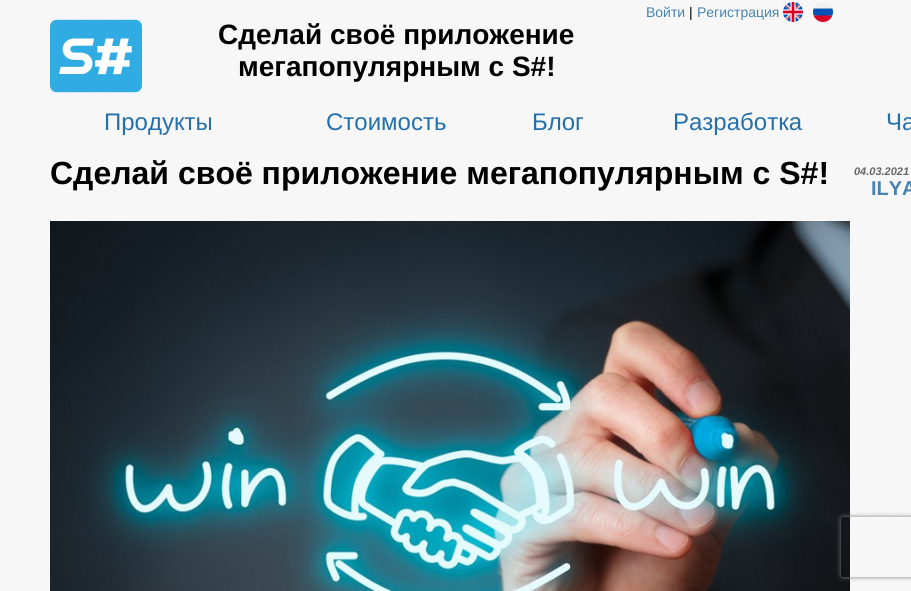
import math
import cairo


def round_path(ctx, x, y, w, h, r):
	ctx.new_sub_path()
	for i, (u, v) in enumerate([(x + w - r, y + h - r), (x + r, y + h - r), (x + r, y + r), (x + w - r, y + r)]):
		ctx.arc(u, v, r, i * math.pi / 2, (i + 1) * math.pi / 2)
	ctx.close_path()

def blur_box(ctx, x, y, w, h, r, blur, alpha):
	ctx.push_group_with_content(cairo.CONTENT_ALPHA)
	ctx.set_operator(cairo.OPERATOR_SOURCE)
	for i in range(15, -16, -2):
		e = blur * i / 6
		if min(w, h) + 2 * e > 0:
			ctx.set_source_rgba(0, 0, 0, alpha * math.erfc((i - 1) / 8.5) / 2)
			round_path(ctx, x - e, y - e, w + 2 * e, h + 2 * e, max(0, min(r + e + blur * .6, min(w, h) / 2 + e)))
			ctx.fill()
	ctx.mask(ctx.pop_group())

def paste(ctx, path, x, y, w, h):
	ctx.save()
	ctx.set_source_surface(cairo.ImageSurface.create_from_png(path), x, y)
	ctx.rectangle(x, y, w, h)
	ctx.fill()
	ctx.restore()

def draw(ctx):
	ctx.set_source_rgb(1, 1, 1)
	ctx.paint()
	paste(ctx, 'media/1.png', 0, 0, 911, 591)
	ctx.select_font_face('Liberation Sans')
	ctx.set_font_size(14)
	ctx.set_source_rgb(0.282, 0.514, 0.69)
	ctx.move_to(646, 17)
	ctx.show_text('Войти')
	ctx.set_source_rgb(0, 0, 0)
	ctx.move_to(689, 17)
	ctx.show_text('|')
	ctx.set_source_rgb(0.282, 0.514, 0.69)
	ctx.move_to(697, 17)
	ctx.show_text('Регистрация')
	paste(ctx, 'media/2.png', 783, 2, 20, 20)
	paste(ctx, 'media/3.png', 813, 2, 20, 20)
	paste(ctx, 'media/4.png', 50, 19, 92, 74)
	ctx.select_font_face('Liberation Sans', cairo.FONT_SLANT_NORMAL, cairo.FONT_WEIGHT_BOLD)
	ctx.set_font_size(28)
	ctx.set_source_rgb(0, 0, 0)
	ctx.move_to(218, 44)
	ctx.show_text('Сделай своё приложение')
	ctx.move_to(238, 76)
	ctx.show_text('мегапопулярным с S#!')
	ctx.select_font_face('Liberation Sans')
	ctx.set_font_size(24)
	ctx.set_source_rgb(0.145, 0.439, 0.667)
	for x, y, s in [
		(104, 130, 'Продукты'),
		(326, 130, 'Стоимость'),
		(532, 130, 'Блог'),
		(673, 130, 'Разработка'),
		(886, 130, 'Ча'),
	]:
		ctx.move_to(x, y)
		ctx.show_text(s)
	ctx.select_font_face('Liberation Sans', cairo.FONT_SLANT_NORMAL, cairo.FONT_WEIGHT_BOLD)
	ctx.set_font_size(32)
	ctx.set_source_rgb(0, 0, 0)
	ctx.move_to(50, 184)
	ctx.show_text('Сделай своё приложение мегапопулярным с S#!')
	ctx.select_font_face('Liberation Sans', cairo.FONT_SLANT_ITALIC, cairo.FONT_WEIGHT_BOLD)
	ctx.set_font_size(11)
	ctx.set_source_rgb(0.4, 0.4, 0.4)
	ctx.move_to(854, 175)
	ctx.show_text('04.03.2021')
	ctx.select_font_face('Liberation Sans', cairo.FONT_SLANT_NORMAL, cairo.FONT_WEIGHT_BOLD)
	ctx.set_font_size(20)
	ctx.set_source_rgb(0.282, 0.514, 0.69)
	ctx.move_to(871, 195)
	ctx.show_text('ILYA')
	paste(ctx, 'media/5.png', 50, 221, 800, 370)
	ctx.save()
	ctx.set_fill_rule(cairo.FILL_RULE_EVEN_ODD)
	ctx.new_path()
	ctx.move_to(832, 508)
	ctx.line_to(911, 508)
	ctx.line_to(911, 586)
	ctx.line_to(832, 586)
	ctx.close_path()
	ctx.move_to(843, 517)
	ctx.line_to(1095, 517)
	ctx.curve_to(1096, 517, 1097, 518, 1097, 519)
	ctx.line_to(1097, 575)
	ctx.curve_to(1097, 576, 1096, 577, 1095, 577)
	ctx.line_to(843, 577)
	ctx.curve_to(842, 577, 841, 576, 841, 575)
	ctx.line_to(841, 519)
	ctx.curve_to(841, 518, 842, 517, 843, 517)
	ctx.close_path()
	ctx.clip()
	ctx.set_source_rgb(0.502, 0.502, 0.502)
	blur_box(ctx, 841, 517, 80, 60, 2, 2.5, 1)
	ctx.restore()


surface = cairo.ImageSurface(cairo.FORMAT_RGB24, 911, 591)
ctx = cairo.Context(surface)
options = cairo.FontOptions()
options.set_hint_metrics(cairo.HINT_METRICS_OFF)
options.set_hint_style(cairo.HINT_STYLE_NONE)
ctx.set_font_options(options)
ctx.set_miter_limit(4)
draw(ctx)
surface.write_to_png('image.png')
